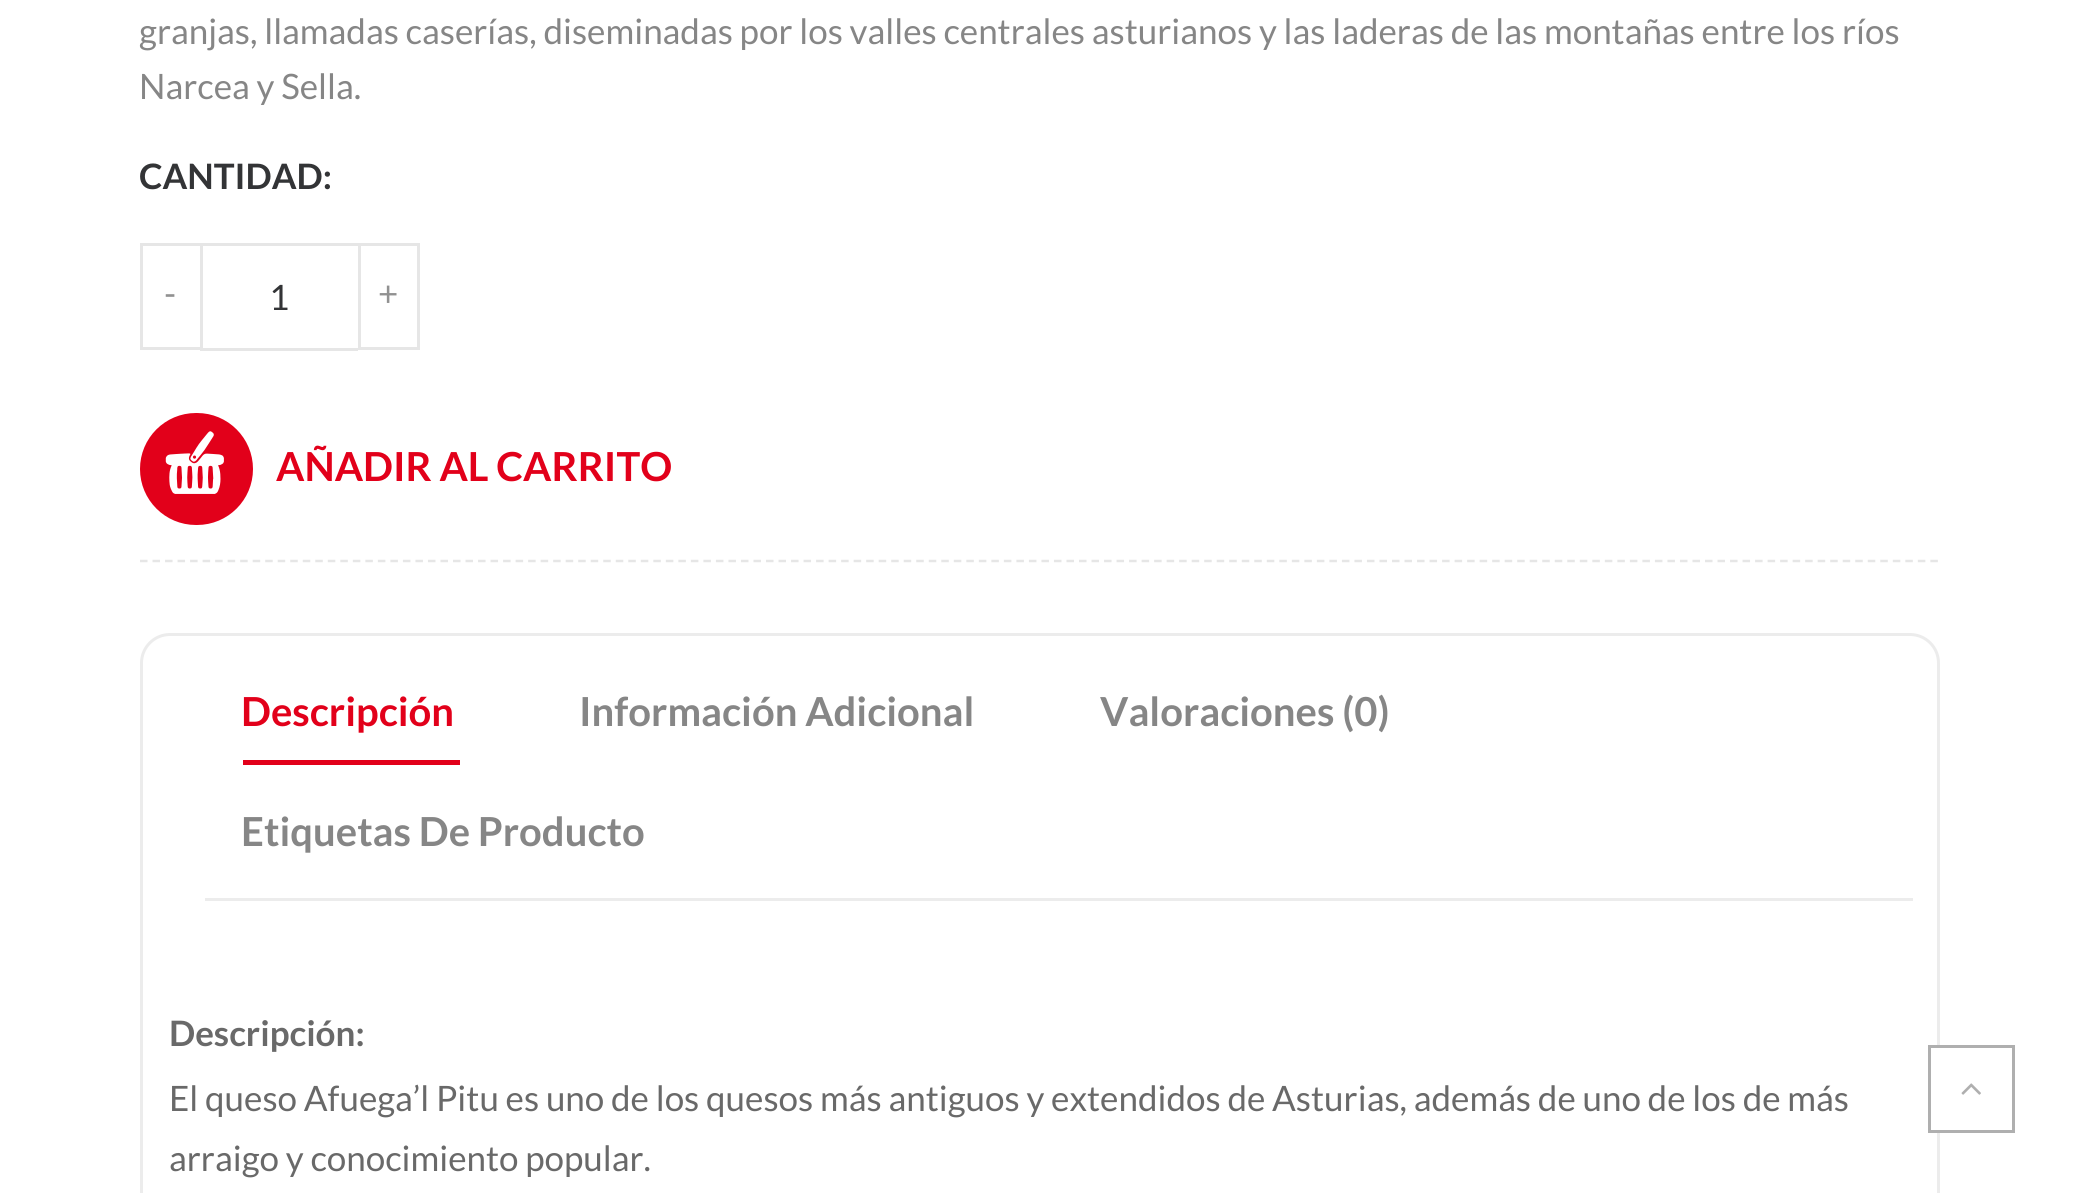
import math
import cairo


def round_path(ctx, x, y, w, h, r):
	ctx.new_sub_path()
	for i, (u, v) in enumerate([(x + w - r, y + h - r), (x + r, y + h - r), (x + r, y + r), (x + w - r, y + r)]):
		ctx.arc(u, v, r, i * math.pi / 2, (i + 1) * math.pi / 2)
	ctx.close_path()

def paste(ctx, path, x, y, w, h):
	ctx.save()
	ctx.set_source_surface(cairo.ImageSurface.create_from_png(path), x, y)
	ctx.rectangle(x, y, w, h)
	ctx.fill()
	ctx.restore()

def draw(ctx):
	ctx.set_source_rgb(1, 1, 1)
	ctx.paint()
	ctx.select_font_face('Lato')
	ctx.set_font_size(35)
	ctx.set_source_rgb(0.525, 0.525, 0.525)
	ctx.move_to(139, 44)
	ctx.show_text('granjas, llamadas caserías, diseminadas por los valles centrales asturianos y las laderas de las montañas entre los ríos')
	ctx.move_to(139, 99)
	ctx.show_text('Narcea y Sella.')
	ctx.select_font_face('Lato', cairo.FONT_SLANT_NORMAL, cairo.FONT_WEIGHT_BOLD)
	ctx.set_source_rgb(0.2, 0.204, 0.212)
	ctx.move_to(139, 189)
	ctx.show_text('CANTIDAD:')
	ctx.rectangle(141.5, 244.5, 60, 104)
	ctx.set_source_rgb(0.902, 0.902, 0.902)
	ctx.set_line_width(3)
	ctx.stroke()
	ctx.select_font_face('Lato')
	ctx.set_source_rgb(0.569, 0.569, 0.569)
	ctx.move_to(164, 306)
	ctx.show_text('-')
	ctx.set_source_rgb(0.902, 0.902, 0.902)
	ctx.rectangle(200, 243, 158, 3)
	ctx.fill()
	ctx.rectangle(200, 348, 158, 3)
	ctx.fill()
	ctx.set_source_rgb(0.2, 0.204, 0.212)
	ctx.move_to(269, 310)
	ctx.show_text('1')
	ctx.rectangle(359.5, 244.5, 59, 104)
	ctx.set_source_rgb(0.902, 0.902, 0.902)
	ctx.stroke()
	ctx.set_source_rgb(0.569, 0.569, 0.569)
	ctx.move_to(378, 306)
	ctx.show_text('+')
	ctx.set_source_rgb(0.886, 0, 0.102)
	round_path(ctx, 141.5, 414.5, 110, 109, 54.5)
	ctx.fill_preserve()
	ctx.stroke()
	paste(ctx, 'media/1.png', 165, 431, 59, 63)
	ctx.select_font_face('Lato', cairo.FONT_SLANT_NORMAL, cairo.FONT_WEIGHT_BOLD)
	ctx.set_font_size(40)
	ctx.move_to(276, 481)
	ctx.show_text('AÑADIR AL CARRITO')
	ctx.new_path()
	ctx.move_to(140, 561)
	ctx.line_to(1940, 561)
	ctx.set_source_rgb(0.902, 0.902, 0.902)
	ctx.set_line_width(2.5)
	ctx.set_dash([7.5, 5.02])
	ctx.stroke()
	round_path(ctx, 141.5, 634.5, 1797, 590, 28.5)
	ctx.set_source_rgb(0.922, 0.922, 0.922)
	ctx.set_line_width(3)
	ctx.set_dash([])
	ctx.stroke()
	ctx.rectangle(205, 898, 1708, 3)
	ctx.fill()
	ctx.set_source_rgb(0.886, 0, 0.102)
	ctx.move_to(241, 726)
	ctx.show_text('Descripción')
	ctx.rectangle(243, 760, 217, 5)
	ctx.fill()
	ctx.set_source_rgb(0.525, 0.525, 0.525)
	for x, y, s in [
		(579, 726, 'Información Adicional'),
		(1100, 726, 'Valoraciones (0)'),
		(241, 846, 'Etiquetas De Producto'),
	]:
		ctx.move_to(x, y)
		ctx.show_text(s)
	ctx.set_font_size(35)
	ctx.set_source_rgb(0.412, 0.412, 0.412)
	ctx.move_to(169, 1046)
	ctx.show_text('Descripción:')
	ctx.select_font_face('Lato')
	ctx.move_to(169, 1111)
	ctx.show_text('El queso Afuega’l Pitu es uno de los quesos más antiguos y extendidos de Asturias, además de uno de los de más')
	ctx.move_to(169, 1171)
	ctx.show_text('arraigo y conocimiento popular.')
	ctx.set_source_rgb(1, 1, 1)
	ctx.rectangle(1937, 1048, 3, 82)
	ctx.fill()
	ctx.rectangle(1929.5, 1046.5, 84, 85)
	ctx.set_source_rgb(0.686, 0.686, 0.686)
	ctx.stroke()
	paste(ctx, 'media/2.png', 1961, 1083, 20, 12)


surface = cairo.ImageSurface(cairo.FORMAT_RGB24, 2076, 1193)
ctx = cairo.Context(surface)
options = cairo.FontOptions()
options.set_hint_metrics(cairo.HINT_METRICS_OFF)
options.set_hint_style(cairo.HINT_STYLE_NONE)
ctx.set_font_options(options)
ctx.set_miter_limit(4)
draw(ctx)
surface.write_to_png('image.png')
